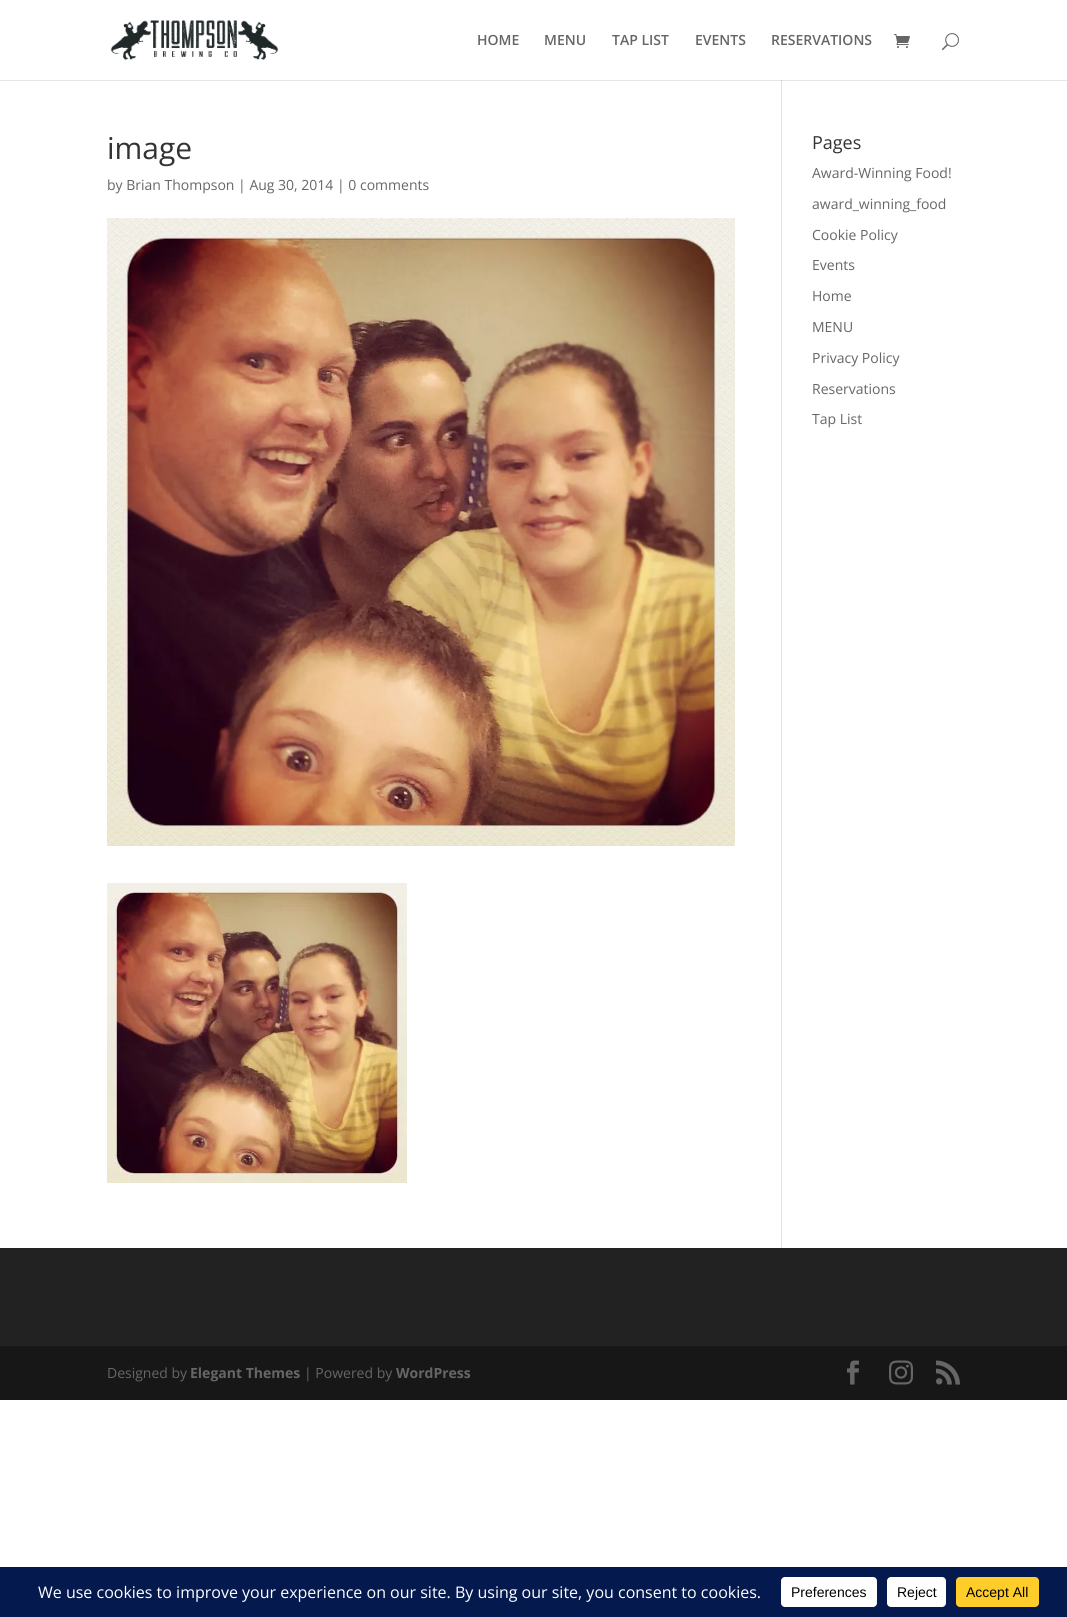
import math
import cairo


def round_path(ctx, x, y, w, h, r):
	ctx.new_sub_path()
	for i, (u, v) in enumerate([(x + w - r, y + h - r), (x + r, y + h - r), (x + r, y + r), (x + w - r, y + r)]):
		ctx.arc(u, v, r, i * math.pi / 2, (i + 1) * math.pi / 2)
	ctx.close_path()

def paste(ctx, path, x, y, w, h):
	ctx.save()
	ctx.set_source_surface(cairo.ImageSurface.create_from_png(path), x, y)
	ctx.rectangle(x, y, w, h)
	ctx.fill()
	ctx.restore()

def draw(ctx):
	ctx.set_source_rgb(1, 1, 1)
	ctx.paint()
	ctx.set_source_rgb(0.902, 0.902, 0.902)
	ctx.rectangle(0, 80, 1067, 1)
	ctx.fill()
	ctx.set_source_rgb(0.886, 0.886, 0.886)
	ctx.rectangle(781, 75, 1, 1173)
	ctx.fill()
	ctx.set_source_rgb(1, 1, 1)
	ctx.rectangle(781, 75, 1, 5)
	ctx.fill()
	paste(ctx, 'media/1.png', 110, 20, 169, 40)
	ctx.select_font_face('Open Sans SemiBold')
	ctx.set_font_size(14)
	ctx.set_source_rgb(0.4, 0.4, 0.4)
	for x, y, s in [
		(477, 45, 'HOME'),
		(544, 45, 'MENU'),
		(612, 45, 'TAP LIST'),
		(695, 45, 'EVENTS'),
		(771, 45, 'RESERVATIONS'),
	]:
		ctx.move_to(x, y)
		ctx.show_text(s)
	paste(ctx, 'media/2.png', 894, 34, 16, 14)
	paste(ctx, 'media/3.png', 942, 33, 17, 18)
	ctx.set_source_rgb(0.796, 0.796, 0.796)
	ctx.rectangle(781, 80, 1, 1)
	ctx.fill()
	ctx.select_font_face('Open Sans')
	ctx.set_font_size(30)
	ctx.set_source_rgb(0.2, 0.2, 0.2)
	ctx.move_to(107, 159)
	ctx.show_text('image')
	ctx.set_font_size(14)
	ctx.set_source_rgb(0.4, 0.4, 0.4)
	ctx.move_to(107, 190)
	ctx.show_text('by Brian Thompson | Aug 30, 2014 | 0 comments')
	paste(ctx, 'media/4.png', 107, 218, 628, 628)
	paste(ctx, 'media/5.png', 107, 883, 300, 300)
	ctx.set_font_size(18)
	ctx.set_source_rgb(0.2, 0.2, 0.2)
	ctx.move_to(812, 149)
	ctx.show_text('Pages')
	ctx.set_font_size(14)
	ctx.set_source_rgb(0.4, 0.4, 0.4)
	for x, y, s in [
		(812, 178, 'Award-Winning Food!'),
		(812, 209, 'award_winning_food'),
		(812, 240, 'Cookie Policy'),
		(812, 270, 'Events'),
		(812, 301, 'Home'),
		(812, 332, 'MENU'),
		(812, 363, 'Privacy Policy'),
		(812, 394, 'Reservations'),
		(812, 424, 'Tap List'),
	]:
		ctx.move_to(x, y)
		ctx.show_text(s)
	ctx.set_source_rgb(0.133, 0.133, 0.133)
	ctx.rectangle(0, 1248, 1067, 98)
	ctx.fill()
	ctx.set_source_rgb(0.09, 0.09, 0.09)
	ctx.rectangle(0, 1346, 1067, 54)
	ctx.fill()
	ctx.set_source_rgb(0.4, 0.4, 0.4)
	ctx.move_to(107, 1378)
	ctx.show_text('Designed by')
	ctx.select_font_face('Open Sans', cairo.FONT_SLANT_NORMAL, cairo.FONT_WEIGHT_BOLD)
	ctx.move_to(190, 1378)
	ctx.show_text('Elegant Themes')
	ctx.select_font_face('Open Sans')
	ctx.move_to(304, 1378)
	ctx.show_text('| Powered by')
	ctx.select_font_face('Open Sans', cairo.FONT_SLANT_NORMAL, cairo.FONT_WEIGHT_BOLD)
	ctx.move_to(396, 1378)
	ctx.show_text('WordPress')
	paste(ctx, 'media/6.png', 847, 1360, 12, 25)
	paste(ctx, 'media/7.png', 889, 1360, 24, 25)
	paste(ctx, 'media/8.png', 936, 1360, 24, 25)
	ctx.set_source_rgb(0.016, 0.098, 0.306)
	ctx.rectangle(0, 1567, 1067, 50)
	ctx.fill()
	ctx.select_font_face('Open Sans')
	ctx.set_font_size(16)
	ctx.set_source_rgb(1, 1, 1)
	ctx.move_to(38, 1598)
	ctx.show_text('We use cookies to improve your experience on our site. By using our site, you consent to cookies.')
	round_path(ctx, 781, 1577, 96, 30, 4)
	ctx.fill()
	ctx.select_font_face('Liberation Sans')
	ctx.set_font_size(14)
	ctx.set_source_rgb(0, 0, 0)
	ctx.move_to(791, 1597)
	ctx.show_text('Preferences')
	ctx.set_source_rgb(1, 1, 1)
	round_path(ctx, 887, 1577, 59, 30, 4)
	ctx.fill()
	ctx.set_source_rgb(0, 0, 0)
	ctx.move_to(897, 1597)
	ctx.show_text('Reject')
	ctx.set_source_rgb(1, 0.804, 0.165)
	round_path(ctx, 956, 1577, 83, 30, 4)
	ctx.fill()
	ctx.set_source_rgb(0, 0, 0)
	ctx.move_to(966, 1597)
	ctx.show_text('Accept All')


surface = cairo.ImageSurface(cairo.FORMAT_RGB24, 1067, 1617)
ctx = cairo.Context(surface)
options = cairo.FontOptions()
options.set_hint_metrics(cairo.HINT_METRICS_OFF)
options.set_hint_style(cairo.HINT_STYLE_NONE)
ctx.set_font_options(options)
ctx.set_miter_limit(4)
draw(ctx)
surface.write_to_png('image.png')
